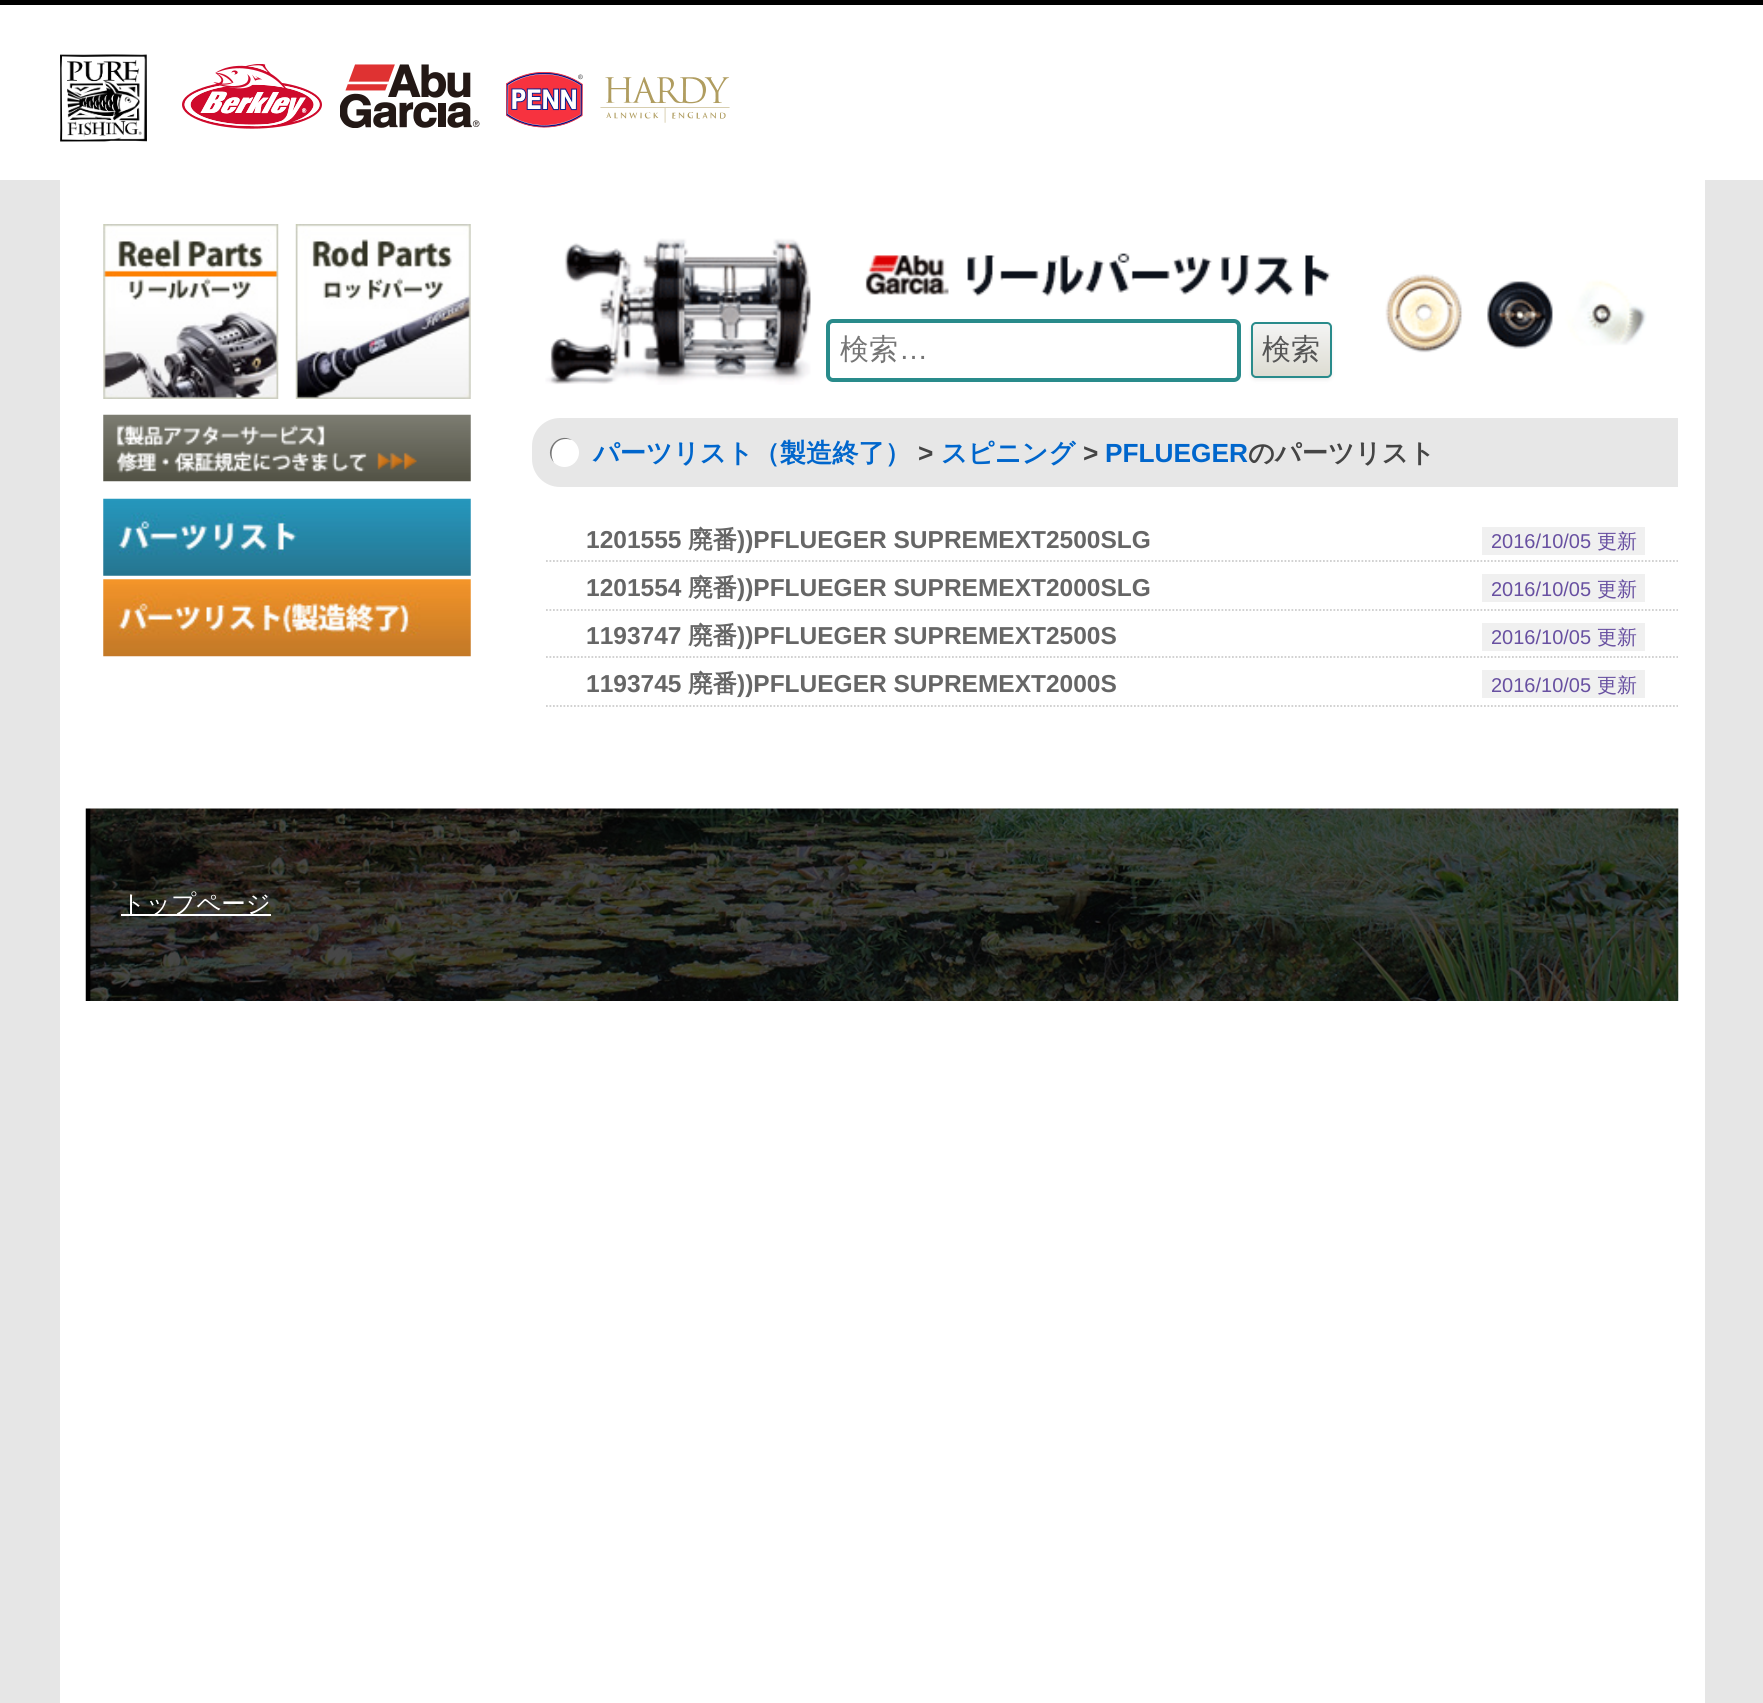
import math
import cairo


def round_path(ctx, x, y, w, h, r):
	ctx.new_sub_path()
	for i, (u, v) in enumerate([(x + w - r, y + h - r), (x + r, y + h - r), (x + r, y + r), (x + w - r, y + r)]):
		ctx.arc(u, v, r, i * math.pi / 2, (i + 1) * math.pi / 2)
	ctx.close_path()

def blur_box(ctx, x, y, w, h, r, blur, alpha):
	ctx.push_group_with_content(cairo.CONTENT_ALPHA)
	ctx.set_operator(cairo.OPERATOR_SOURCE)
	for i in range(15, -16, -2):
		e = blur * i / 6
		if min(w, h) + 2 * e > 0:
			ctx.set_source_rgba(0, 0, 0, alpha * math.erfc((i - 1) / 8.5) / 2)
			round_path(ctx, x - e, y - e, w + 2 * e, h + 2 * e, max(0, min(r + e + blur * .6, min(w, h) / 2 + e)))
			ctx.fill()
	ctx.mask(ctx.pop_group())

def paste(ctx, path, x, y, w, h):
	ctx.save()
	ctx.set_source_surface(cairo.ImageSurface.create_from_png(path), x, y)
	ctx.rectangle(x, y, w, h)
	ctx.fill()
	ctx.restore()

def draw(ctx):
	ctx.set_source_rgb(0.902, 0.902, 0.902)
	ctx.paint()
	ctx.set_source_rgb(1, 1, 1)
	ctx.rectangle(0, 5, 1763, 175)
	ctx.fill()
	ctx.set_source_rgb(0, 0, 0)
	ctx.rectangle(0, 0, 1763, 5)
	ctx.fill()
	paste(ctx, 'media/1.png', 60, 54, 87, 88)
	paste(ctx, 'media/2.png', 182, 64, 140, 65)
	paste(ctx, 'media/3.png', 340, 64, 140, 64)
	paste(ctx, 'media/4.png', 506, 72, 77, 56)
	paste(ctx, 'media/5.png', 600, 76, 130, 47)
	ctx.set_source_rgb(1, 1, 1)
	ctx.rectangle(60, 180, 1645, 1523)
	ctx.fill()
	paste(ctx, 'media/6.png', 103, 224, 176, 175)
	paste(ctx, 'media/7.png', 295, 224, 176, 175)
	paste(ctx, 'media/8.png', 103, 414, 368, 68)
	paste(ctx, 'media/9.png', 103, 498, 368, 78)
	paste(ctx, 'media/10.png', 103, 579, 368, 78)
	paste(ctx, 'media/11.png', 545, 238, 1102, 147)
	round_path(ctx, 828, 321, 411, 59, 5)
	ctx.set_source_rgb(0.161, 0.545, 0.545)
	ctx.set_line_width(4)
	ctx.stroke()
	ctx.select_font_face('WenQuanYi Zen Hei Medium')
	ctx.set_font_size(29)
	ctx.set_source_rgb(0.459, 0.459, 0.459)
	ctx.move_to(840, 359)
	ctx.show_text('検索')
	ctx.select_font_face('Liberation Sans')
	ctx.move_to(899, 359)
	ctx.show_text('…')
	ctx.set_source_rgb(0.251, 0.251, 0.251)
	blur_box(ctx, 1251, 324, 81, 56, 5, 2, 0.1)
	ctx.save()
	round_path(ctx, 1251, 322, 81, 56, 5)
	ctx.clip()
	gradient = cairo.LinearGradient(1292, 324, 1292, 376)
	gradient.add_color_stop_rgba(0, 0.957, 0.957, 0.957, 1)
	gradient.add_color_stop_rgba(1, 0.867, 0.863, 0.824, 1)
	ctx.set_source(gradient)
	ctx.rectangle(1251, 324, 81, 52)
	ctx.fill()
	ctx.restore()
	round_path(ctx, 1252, 323, 79, 54, 4)
	ctx.set_source_rgb(0.161, 0.545, 0.545)
	ctx.set_line_width(2)
	ctx.stroke()
	ctx.select_font_face('WenQuanYi Zen Hei Medium')
	ctx.set_source_rgb(0.333, 0.333, 0.333)
	ctx.move_to(1262, 359)
	ctx.show_text('検索')
	ctx.set_source_rgb(0.906, 0.906, 0.906)
	ctx.new_path()
	ctx.move_to(560, 418)
	ctx.line_to(1678, 418)
	ctx.line_to(1678, 487)
	ctx.line_to(560, 487)
	ctx.curve_to(544.5, 487, 532, 474.5, 532, 459)
	ctx.line_to(532, 446)
	ctx.curve_to(532, 430.5, 544.5, 418, 560, 418)
	ctx.close_path()
	ctx.fill()
	ctx.set_source_rgb(1, 1, 1)
	ctx.arc(564.5, 452.5, 14.5, 0, 2 * math.pi)
	ctx.fill()
	ctx.set_source_rgb(0.467, 0.467, 0.467)
	ctx.new_path()
	ctx.move_to(566, 439)
	ctx.curve_to(568, 439, 570, 439.5, 572, 440)
	ctx.curve_to(557.5, 431.5, 542.5, 450.5, 554, 462.5)
	ctx.curve_to(548.5, 453.5, 552.5, 439, 566, 439)
	ctx.close_path()
	ctx.fill()
	ctx.select_font_face('WenQuanYi Zen Hei', cairo.FONT_SLANT_NORMAL, cairo.FONT_WEIGHT_BOLD)
	ctx.set_font_size(26.25)
	ctx.set_source_rgb(0, 0.4, 0.8)
	ctx.move_to(593, 462)
	ctx.show_text('パーツリスト（製造終了）')
	ctx.select_font_face('Liberation Sans', cairo.FONT_SLANT_NORMAL, cairo.FONT_WEIGHT_BOLD)
	ctx.set_source_rgb(0.271, 0.271, 0.271)
	ctx.move_to(918, 462)
	ctx.show_text('>')
	ctx.select_font_face('WenQuanYi Zen Hei', cairo.FONT_SLANT_NORMAL, cairo.FONT_WEIGHT_BOLD)
	ctx.set_source_rgb(0, 0.4, 0.8)
	ctx.move_to(941, 462)
	ctx.show_text('スピニング')
	ctx.select_font_face('Liberation Sans', cairo.FONT_SLANT_NORMAL, cairo.FONT_WEIGHT_BOLD)
	ctx.set_source_rgb(0.271, 0.271, 0.271)
	ctx.move_to(1083, 462)
	ctx.show_text('>')
	ctx.set_source_rgb(0, 0.4, 0.8)
	ctx.move_to(1105, 462)
	ctx.show_text('PFLUEGER')
	ctx.select_font_face('WenQuanYi Zen Hei', cairo.FONT_SLANT_NORMAL, cairo.FONT_WEIGHT_BOLD)
	ctx.set_source_rgb(0.271, 0.271, 0.271)
	ctx.move_to(1248, 462)
	ctx.show_text('のパーツリスト')
	ctx.new_path()
	ctx.move_to(546, 561)
	ctx.line_to(1678, 561)
	ctx.set_source_rgb(0.804, 0.804, 0.804)
	ctx.set_line_width(1.8)
	ctx.set_dash([1.75, 1.75])
	ctx.stroke()
	ctx.select_font_face('Liberation Sans', cairo.FONT_SLANT_NORMAL, cairo.FONT_WEIGHT_BOLD)
	ctx.set_font_size(24.5)
	ctx.set_source_rgb(0.4, 0.4, 0.4)
	ctx.move_to(586, 548)
	ctx.show_text('1201555')
	ctx.select_font_face('WenQuanYi Zen Hei', cairo.FONT_SLANT_NORMAL, cairo.FONT_WEIGHT_BOLD)
	ctx.move_to(688, 548)
	ctx.show_text('廃番')
	ctx.select_font_face('Liberation Sans', cairo.FONT_SLANT_NORMAL, cairo.FONT_WEIGHT_BOLD)
	ctx.move_to(737, 548)
	ctx.show_text('))PFLUEGER SUPREMEXT2500SLG')
	ctx.set_source_rgb(0.941, 0.941, 0.941)
	ctx.rectangle(1482, 527, 163, 28)
	ctx.fill()
	ctx.select_font_face('Liberation Sans')
	ctx.set_font_size(20)
	ctx.set_source_rgb(0.408, 0.314, 0.631)
	ctx.move_to(1491, 548)
	ctx.show_text('2016/10/05')
	ctx.select_font_face('WenQuanYi Zen Hei Medium')
	ctx.move_to(1597, 548)
	ctx.show_text('更新')
	ctx.new_path()
	ctx.move_to(546, 610)
	ctx.line_to(1678, 610)
	ctx.set_source_rgb(0.804, 0.804, 0.804)
	ctx.stroke()
	ctx.select_font_face('Liberation Sans', cairo.FONT_SLANT_NORMAL, cairo.FONT_WEIGHT_BOLD)
	ctx.set_font_size(24.5)
	ctx.set_source_rgb(0.4, 0.4, 0.4)
	ctx.move_to(586, 596)
	ctx.show_text('1201554')
	ctx.select_font_face('WenQuanYi Zen Hei', cairo.FONT_SLANT_NORMAL, cairo.FONT_WEIGHT_BOLD)
	ctx.move_to(688, 596)
	ctx.show_text('廃番')
	ctx.select_font_face('Liberation Sans', cairo.FONT_SLANT_NORMAL, cairo.FONT_WEIGHT_BOLD)
	ctx.move_to(737, 596)
	ctx.show_text('))PFLUEGER SUPREMEXT2000SLG')
	ctx.set_source_rgb(0.941, 0.941, 0.941)
	ctx.rectangle(1482, 574, 163, 28)
	ctx.fill()
	ctx.select_font_face('Liberation Sans')
	ctx.set_font_size(20)
	ctx.set_source_rgb(0.408, 0.314, 0.631)
	ctx.move_to(1491, 596)
	ctx.show_text('2016/10/05')
	ctx.select_font_face('WenQuanYi Zen Hei Medium')
	ctx.move_to(1597, 596)
	ctx.show_text('更新')
	ctx.new_path()
	ctx.move_to(546, 657)
	ctx.line_to(1678, 657)
	ctx.set_source_rgb(0.804, 0.804, 0.804)
	ctx.stroke()
	ctx.select_font_face('Liberation Sans', cairo.FONT_SLANT_NORMAL, cairo.FONT_WEIGHT_BOLD)
	ctx.set_font_size(24.5)
	ctx.set_source_rgb(0.4, 0.4, 0.4)
	ctx.move_to(586, 644)
	ctx.show_text('1193747')
	ctx.select_font_face('WenQuanYi Zen Hei', cairo.FONT_SLANT_NORMAL, cairo.FONT_WEIGHT_BOLD)
	ctx.move_to(688, 644)
	ctx.show_text('廃番')
	ctx.select_font_face('Liberation Sans', cairo.FONT_SLANT_NORMAL, cairo.FONT_WEIGHT_BOLD)
	ctx.move_to(737, 644)
	ctx.show_text('))PFLUEGER SUPREMEXT2500S')
	ctx.set_source_rgb(0.941, 0.941, 0.941)
	ctx.rectangle(1482, 623, 163, 28)
	ctx.fill()
	ctx.select_font_face('Liberation Sans')
	ctx.set_font_size(20)
	ctx.set_source_rgb(0.408, 0.314, 0.631)
	ctx.move_to(1491, 644)
	ctx.show_text('2016/10/05')
	ctx.select_font_face('WenQuanYi Zen Hei Medium')
	ctx.move_to(1597, 644)
	ctx.show_text('更新')
	ctx.new_path()
	ctx.move_to(546, 706)
	ctx.line_to(1678, 706)
	ctx.set_source_rgb(0.804, 0.804, 0.804)
	ctx.stroke()
	ctx.select_font_face('Liberation Sans', cairo.FONT_SLANT_NORMAL, cairo.FONT_WEIGHT_BOLD)
	ctx.set_font_size(24.5)
	ctx.set_source_rgb(0.4, 0.4, 0.4)
	ctx.move_to(586, 692)
	ctx.show_text('1193745')
	ctx.select_font_face('WenQuanYi Zen Hei', cairo.FONT_SLANT_NORMAL, cairo.FONT_WEIGHT_BOLD)
	ctx.move_to(688, 692)
	ctx.show_text('廃番')
	ctx.select_font_face('Liberation Sans', cairo.FONT_SLANT_NORMAL, cairo.FONT_WEIGHT_BOLD)
	ctx.move_to(737, 692)
	ctx.show_text('))PFLUEGER SUPREMEXT2000S')
	ctx.set_source_rgb(0.941, 0.941, 0.941)
	ctx.rectangle(1482, 670, 163, 28)
	ctx.fill()
	ctx.select_font_face('Liberation Sans')
	ctx.set_font_size(20)
	ctx.set_source_rgb(0.408, 0.314, 0.631)
	ctx.move_to(1491, 692)
	ctx.show_text('2016/10/05')
	ctx.select_font_face('WenQuanYi Zen Hei Medium')
	ctx.move_to(1597, 692)
	ctx.show_text('更新')
	paste(ctx, 'media/12.png', 85, 808, 1594, 193)
	ctx.set_source_rgb(1, 1, 1)
	ctx.rectangle(121, 914, 150, 2)
	ctx.fill()
	ctx.set_font_size(24.5)
	ctx.move_to(121, 912)
	ctx.show_text('トップページ')


surface = cairo.ImageSurface(cairo.FORMAT_RGB24, 1763, 1703)
ctx = cairo.Context(surface)
options = cairo.FontOptions()
options.set_hint_metrics(cairo.HINT_METRICS_OFF)
options.set_hint_style(cairo.HINT_STYLE_NONE)
ctx.set_font_options(options)
ctx.set_miter_limit(4)
draw(ctx)
surface.write_to_png('image.png')
